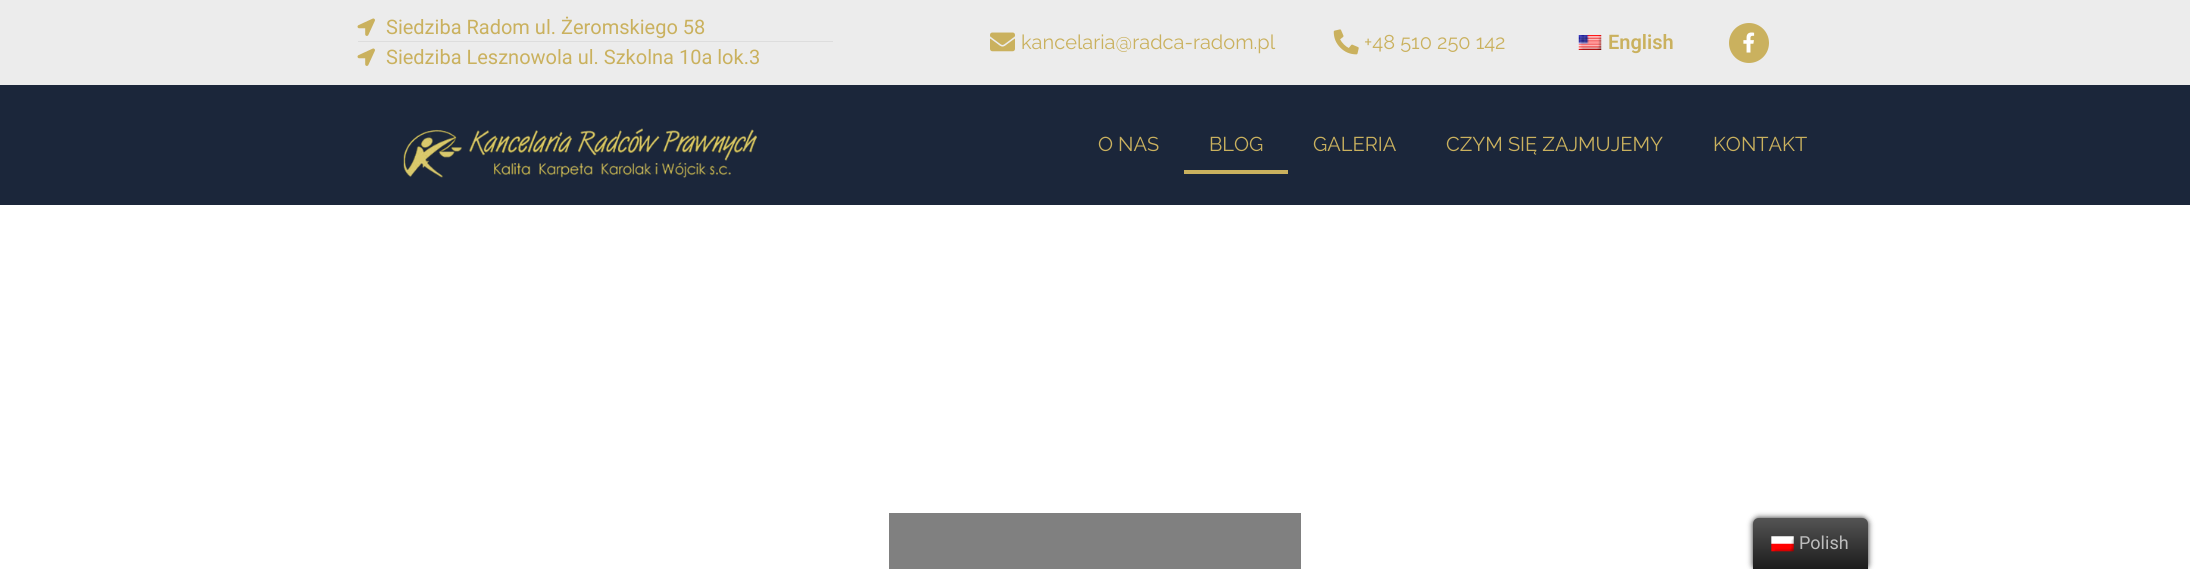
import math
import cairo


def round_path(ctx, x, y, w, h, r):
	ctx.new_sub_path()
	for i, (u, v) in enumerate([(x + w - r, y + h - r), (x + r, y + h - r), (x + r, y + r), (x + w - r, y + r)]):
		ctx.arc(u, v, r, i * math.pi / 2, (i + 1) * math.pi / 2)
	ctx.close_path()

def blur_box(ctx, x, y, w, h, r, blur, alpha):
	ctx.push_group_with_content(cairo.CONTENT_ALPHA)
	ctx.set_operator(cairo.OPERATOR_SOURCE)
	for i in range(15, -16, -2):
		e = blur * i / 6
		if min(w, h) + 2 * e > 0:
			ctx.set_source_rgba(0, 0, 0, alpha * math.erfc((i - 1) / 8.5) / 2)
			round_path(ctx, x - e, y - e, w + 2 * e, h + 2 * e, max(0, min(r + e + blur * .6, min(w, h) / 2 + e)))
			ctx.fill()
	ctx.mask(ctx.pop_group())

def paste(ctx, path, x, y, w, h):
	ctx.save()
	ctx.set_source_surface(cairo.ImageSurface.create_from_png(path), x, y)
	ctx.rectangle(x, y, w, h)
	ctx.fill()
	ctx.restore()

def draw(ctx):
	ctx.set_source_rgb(0.922, 0.922, 0.922)
	ctx.paint()
	paste(ctx, 'media/1.png', 357, 18, 18, 18)
	ctx.select_font_face('Roboto')
	ctx.set_font_size(20)
	ctx.set_source_rgb(0.792, 0.694, 0.369)
	ctx.move_to(386, 34)
	ctx.show_text('Siedziba Radom ul. Żeromskiego 58')
	ctx.set_source_rgb(0.867, 0.867, 0.867)
	ctx.rectangle(358, 41, 475, 1)
	ctx.fill()
	paste(ctx, 'media/1.png', 357, 48, 18, 18)
	ctx.set_source_rgb(0.792, 0.694, 0.369)
	ctx.move_to(386, 64)
	ctx.show_text('Siedziba Lesznowola ul. Szkolna 10a lok.3')
	paste(ctx, 'media/2.png', 990, 32, 25, 20)
	ctx.select_font_face('Raleway')
	ctx.move_to(1021, 49)
	ctx.show_text('kancelaria@radca-radom.pl')
	paste(ctx, 'media/3.png', 1333, 29, 26, 26)
	ctx.move_to(1364, 49)
	ctx.show_text('+48 510 250 142')
	paste(ctx, 'media/4.png', 1578, 35, 24, 15)
	ctx.select_font_face('Roboto SemiBold')
	ctx.move_to(1608, 49)
	ctx.show_text('English')
	ctx.new_path()
	ctx.arc(1749, 43, 20, 0, 2 * math.pi)
	ctx.fill()
	paste(ctx, 'media/5.png', 1743, 32, 12, 21)
	ctx.set_source_rgb(0.106, 0.149, 0.227)
	ctx.rectangle(0, 85, 2190, 120)
	ctx.fill()
	paste(ctx, 'media/6.png', 403, 128, 354, 50)
	ctx.select_font_face('Raleway')
	ctx.set_source_rgb(0.792, 0.694, 0.369)
	ctx.move_to(1098, 151)
	ctx.show_text('O NAS')
	ctx.move_to(1209, 151)
	ctx.show_text('BLOG')
	ctx.rectangle(1184, 170, 104, 4)
	ctx.fill()
	for x, y, s in [
		(1313, 151, 'GALERIA'),
		(1446, 151, 'CZYM SIĘ ZAJMUJEMY'),
		(1713, 151, 'KONTAKT'),
	]:
		ctx.move_to(x, y)
		ctx.show_text(s)
	ctx.set_source_rgb(1, 1, 1)
	ctx.rectangle(0, 205, 2190, 364)
	ctx.fill()
	ctx.set_source_rgb(0.502, 0.502, 0.502)
	ctx.rectangle(889, 513, 412, 56)
	ctx.fill()
	ctx.set_source_rgb(0.129, 0.129, 0.129)
	blur_box(ctx, 1753, 518, 115, 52, 6, 3, 1)
	gradient = cairo.LinearGradient(1810, 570, 1810, 518)
	gradient.add_color_stop_rgba(0, 0.106, 0.106, 0.106, 1)
	gradient.add_color_stop_rgba(1, 0.329, 0.329, 0.329, 1)
	ctx.set_source(gradient)
	ctx.new_path()
	ctx.move_to(1759, 518)
	ctx.line_to(1862, 518)
	ctx.curve_to(1865.5, 518, 1868, 520.5, 1868, 524)
	ctx.line_to(1868, 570)
	ctx.line_to(1753, 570)
	ctx.line_to(1753, 524)
	ctx.curve_to(1753, 520.5, 1755.5, 518, 1759, 518)
	ctx.close_path()
	ctx.fill()
	paste(ctx, 'media/7.png', 1771, 536, 23, 16)
	ctx.select_font_face('Roboto')
	ctx.set_font_size(18)
	ctx.set_source_rgb(0.741, 0.741, 0.741)
	ctx.move_to(1799, 549)
	ctx.show_text('Polish')


surface = cairo.ImageSurface(cairo.FORMAT_RGB24, 2190, 569)
ctx = cairo.Context(surface)
options = cairo.FontOptions()
options.set_hint_metrics(cairo.HINT_METRICS_OFF)
options.set_hint_style(cairo.HINT_STYLE_NONE)
ctx.set_font_options(options)
ctx.set_miter_limit(4)
draw(ctx)
surface.write_to_png('image.png')
